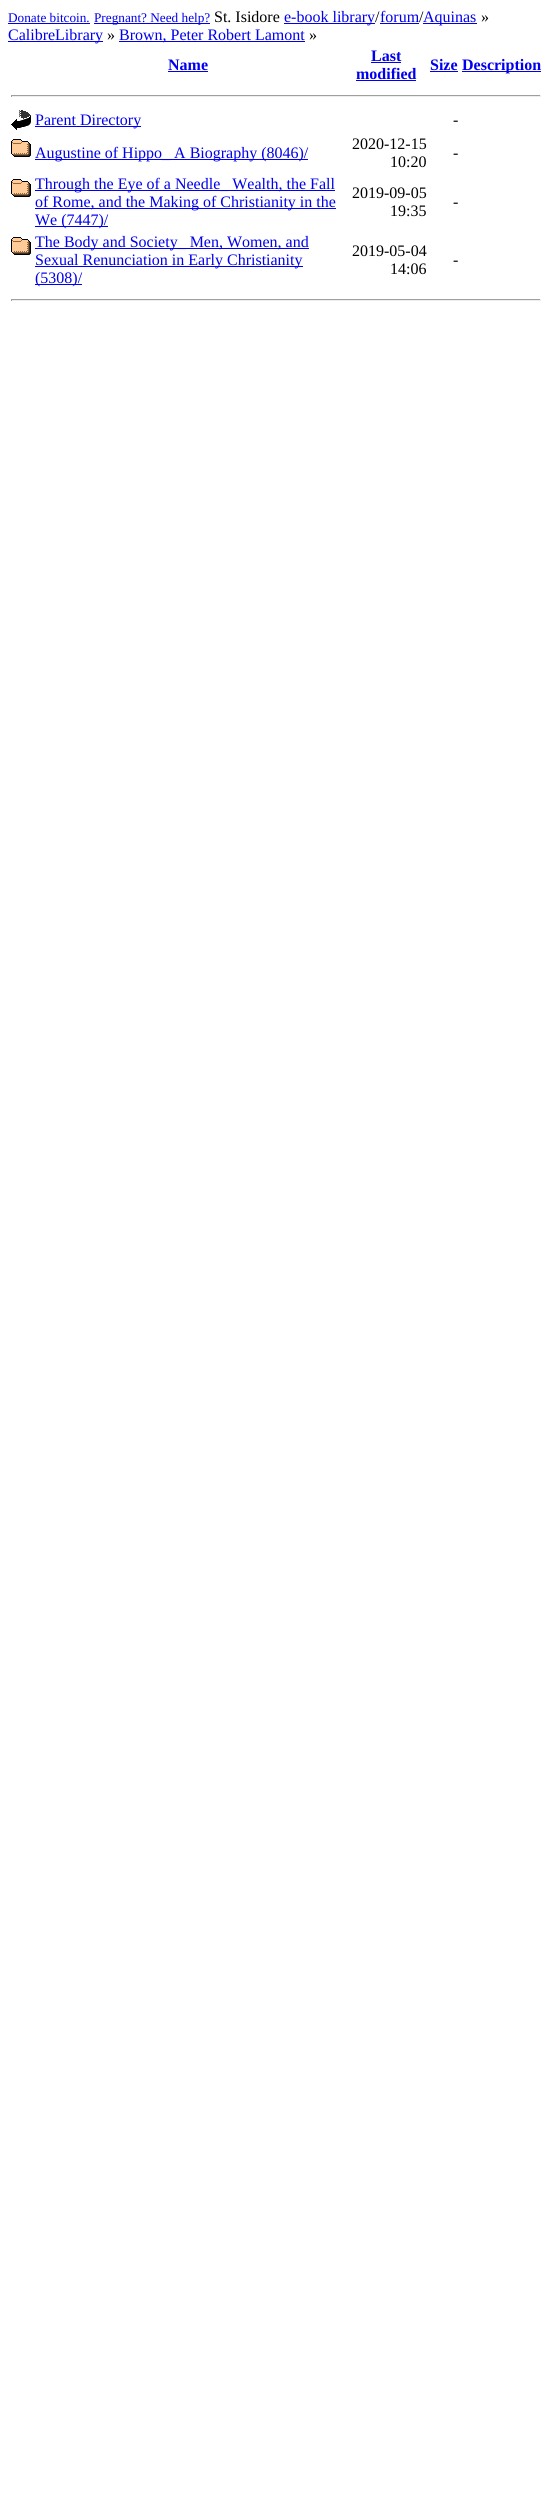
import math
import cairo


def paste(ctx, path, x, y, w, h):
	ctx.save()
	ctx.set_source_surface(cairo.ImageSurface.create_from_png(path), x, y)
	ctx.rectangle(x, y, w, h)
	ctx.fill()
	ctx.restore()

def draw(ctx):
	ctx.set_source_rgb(1, 1, 1)
	ctx.paint()
	ctx.select_font_face('Liberation Serif')
	ctx.set_font_size(13.25)
	ctx.set_source_rgb(0, 0, 0.933)
	ctx.move_to(8, 22)
	ctx.show_text('Donate bitcoin.')
	ctx.rectangle(8, 23, 82, 1)
	ctx.fill()
	ctx.rectangle(94, 23, 116, 1)
	ctx.fill()
	ctx.move_to(94, 22)
	ctx.show_text('Pregnant? Need help?')
	ctx.set_font_size(16)
	ctx.set_source_rgb(0, 0, 0)
	ctx.move_to(214, 22)
	ctx.show_text('St. Isidore')
	ctx.set_source_rgb(0, 0, 0.933)
	ctx.rectangle(284, 23, 91, 1)
	ctx.fill()
	ctx.move_to(284, 22)
	ctx.show_text('e-book library')
	ctx.set_source_rgb(0, 0, 0)
	ctx.move_to(375, 22)
	ctx.show_text('/')
	ctx.set_source_rgb(0, 0, 0.933)
	ctx.move_to(380, 22)
	ctx.show_text('forum')
	ctx.rectangle(380, 23, 39, 1)
	ctx.fill()
	ctx.set_source_rgb(0, 0, 0)
	ctx.move_to(419, 22)
	ctx.show_text('/')
	ctx.set_source_rgb(0, 0, 0.933)
	ctx.rectangle(423, 23, 54, 1)
	ctx.fill()
	ctx.move_to(423, 22)
	ctx.show_text('Aquinas')
	ctx.set_source_rgb(0, 0, 0)
	ctx.move_to(481, 22)
	ctx.show_text('»')
	ctx.set_source_rgb(0, 0, 0.933)
	ctx.rectangle(8, 41, 95, 1)
	ctx.fill()
	ctx.move_to(8, 40)
	ctx.show_text('CalibreLibrary')
	ctx.set_source_rgb(0, 0, 0)
	ctx.move_to(107, 40)
	ctx.show_text('»')
	ctx.set_source_rgb(0, 0, 0.933)
	ctx.rectangle(119, 41, 186, 1)
	ctx.fill()
	ctx.move_to(119, 40)
	ctx.show_text('Brown, Peter Robert Lamont')
	ctx.set_source_rgb(0, 0, 0)
	ctx.move_to(309, 40)
	ctx.show_text('»')
	ctx.select_font_face('Liberation Serif', cairo.FONT_SLANT_NORMAL, cairo.FONT_WEIGHT_BOLD)
	ctx.set_source_rgb(0, 0, 0.933)
	ctx.move_to(168, 70)
	ctx.show_text('Name')
	ctx.rectangle(168, 71, 40, 1)
	ctx.fill()
	ctx.move_to(371, 61)
	ctx.show_text('Last')
	ctx.rectangle(371, 62, 30, 1)
	ctx.fill()
	ctx.move_to(356, 79)
	ctx.show_text('modified')
	ctx.rectangle(356, 80, 60, 1)
	ctx.fill()
	ctx.move_to(430, 70)
	ctx.show_text('Size')
	ctx.rectangle(430, 71, 28, 1)
	ctx.fill()
	ctx.rectangle(462, 71, 79, 1)
	ctx.fill()
	ctx.move_to(462, 70)
	ctx.show_text('Description')
	ctx.set_source_rgb(0.624, 0.624, 0.624)
	ctx.rectangle(11, 95, 530, 1)
	ctx.fill()
	ctx.set_source_rgb(0.933, 0.933, 0.933)
	ctx.rectangle(540, 95, 1, 2)
	ctx.rectangle(11, 96, 530, 1)
	ctx.fill()
	ctx.set_source_rgb(0.624, 0.624, 0.624)
	ctx.rectangle(11, 95, 1, 2)
	ctx.fill()
	paste(ctx, 'media/1.png', 11, 110, 20, 20)
	ctx.set_source_rgb(0, 0, 0.933)
	ctx.rectangle(35, 126, 106, 1)
	ctx.fill()
	ctx.select_font_face('Liberation Serif')
	ctx.move_to(35, 125)
	ctx.show_text('Parent Directory')
	ctx.set_source_rgb(0, 0, 0)
	ctx.move_to(453, 125)
	ctx.show_text('-')
	paste(ctx, 'media/2.png', 11, 139, 20, 18)
	ctx.set_source_rgb(0, 0, 0.933)
	ctx.rectangle(35, 159, 273, 1)
	ctx.fill()
	ctx.move_to(35, 158)
	ctx.show_text('Augustine of Hippo_ A Biography (8046)/')
	ctx.set_source_rgb(0, 0, 0)
	for x, y, s in [
		(352, 149, '2020-12-15'),
		(390, 167, '10:20'),
		(453, 158, '-'),
	]:
		ctx.move_to(x, y)
		ctx.show_text(s)
	paste(ctx, 'media/2.png', 11, 179, 20, 18)
	ctx.set_source_rgb(0, 0, 0.933)
	ctx.rectangle(35, 190, 300, 1)
	ctx.fill()
	ctx.move_to(35, 189)
	ctx.show_text('Through the Eye of a Needle_ Wealth, the Fall')
	ctx.rectangle(35, 208, 301, 1)
	ctx.fill()
	ctx.move_to(35, 207)
	ctx.show_text('of Rome, and the Making of Christianity in the')
	ctx.rectangle(35, 226, 73, 1)
	ctx.fill()
	ctx.move_to(35, 225)
	ctx.show_text('We (7447)/')
	ctx.set_source_rgb(0, 0, 0)
	for x, y, s in [
		(352, 198, '2019-09-05'),
		(390, 216, '19:35'),
		(453, 207, '-'),
	]:
		ctx.move_to(x, y)
		ctx.show_text(s)
	paste(ctx, 'media/2.png', 11, 237, 20, 18)
	ctx.set_source_rgb(0, 0, 0.933)
	ctx.rectangle(35, 248, 274, 1)
	ctx.fill()
	ctx.move_to(35, 247)
	ctx.show_text('The Body and Society_ Men, Women, and')
	ctx.rectangle(35, 266, 268, 1)
	ctx.fill()
	ctx.move_to(35, 265)
	ctx.show_text('Sexual Renunciation in Early Christianity')
	ctx.rectangle(35, 284, 47, 1)
	ctx.fill()
	ctx.move_to(35, 283)
	ctx.show_text('(5308)/')
	ctx.set_source_rgb(0, 0, 0)
	for x, y, s in [
		(352, 256, '2019-05-04'),
		(390, 274, '14:06'),
		(453, 265, '-'),
	]:
		ctx.move_to(x, y)
		ctx.show_text(s)
	ctx.set_source_rgb(0.624, 0.624, 0.624)
	ctx.rectangle(11, 299, 530, 1)
	ctx.fill()
	ctx.set_source_rgb(0.933, 0.933, 0.933)
	ctx.rectangle(540, 299, 1, 2)
	ctx.rectangle(11, 300, 530, 1)
	ctx.fill()
	ctx.set_source_rgb(0.624, 0.624, 0.624)
	ctx.rectangle(11, 299, 1, 2)
	ctx.fill()


surface = cairo.ImageSurface(cairo.FORMAT_RGB24, 552, 2499)
ctx = cairo.Context(surface)
options = cairo.FontOptions()
options.set_hint_metrics(cairo.HINT_METRICS_OFF)
options.set_hint_style(cairo.HINT_STYLE_NONE)
ctx.set_font_options(options)
ctx.set_miter_limit(4)
draw(ctx)
surface.write_to_png('image.png')
